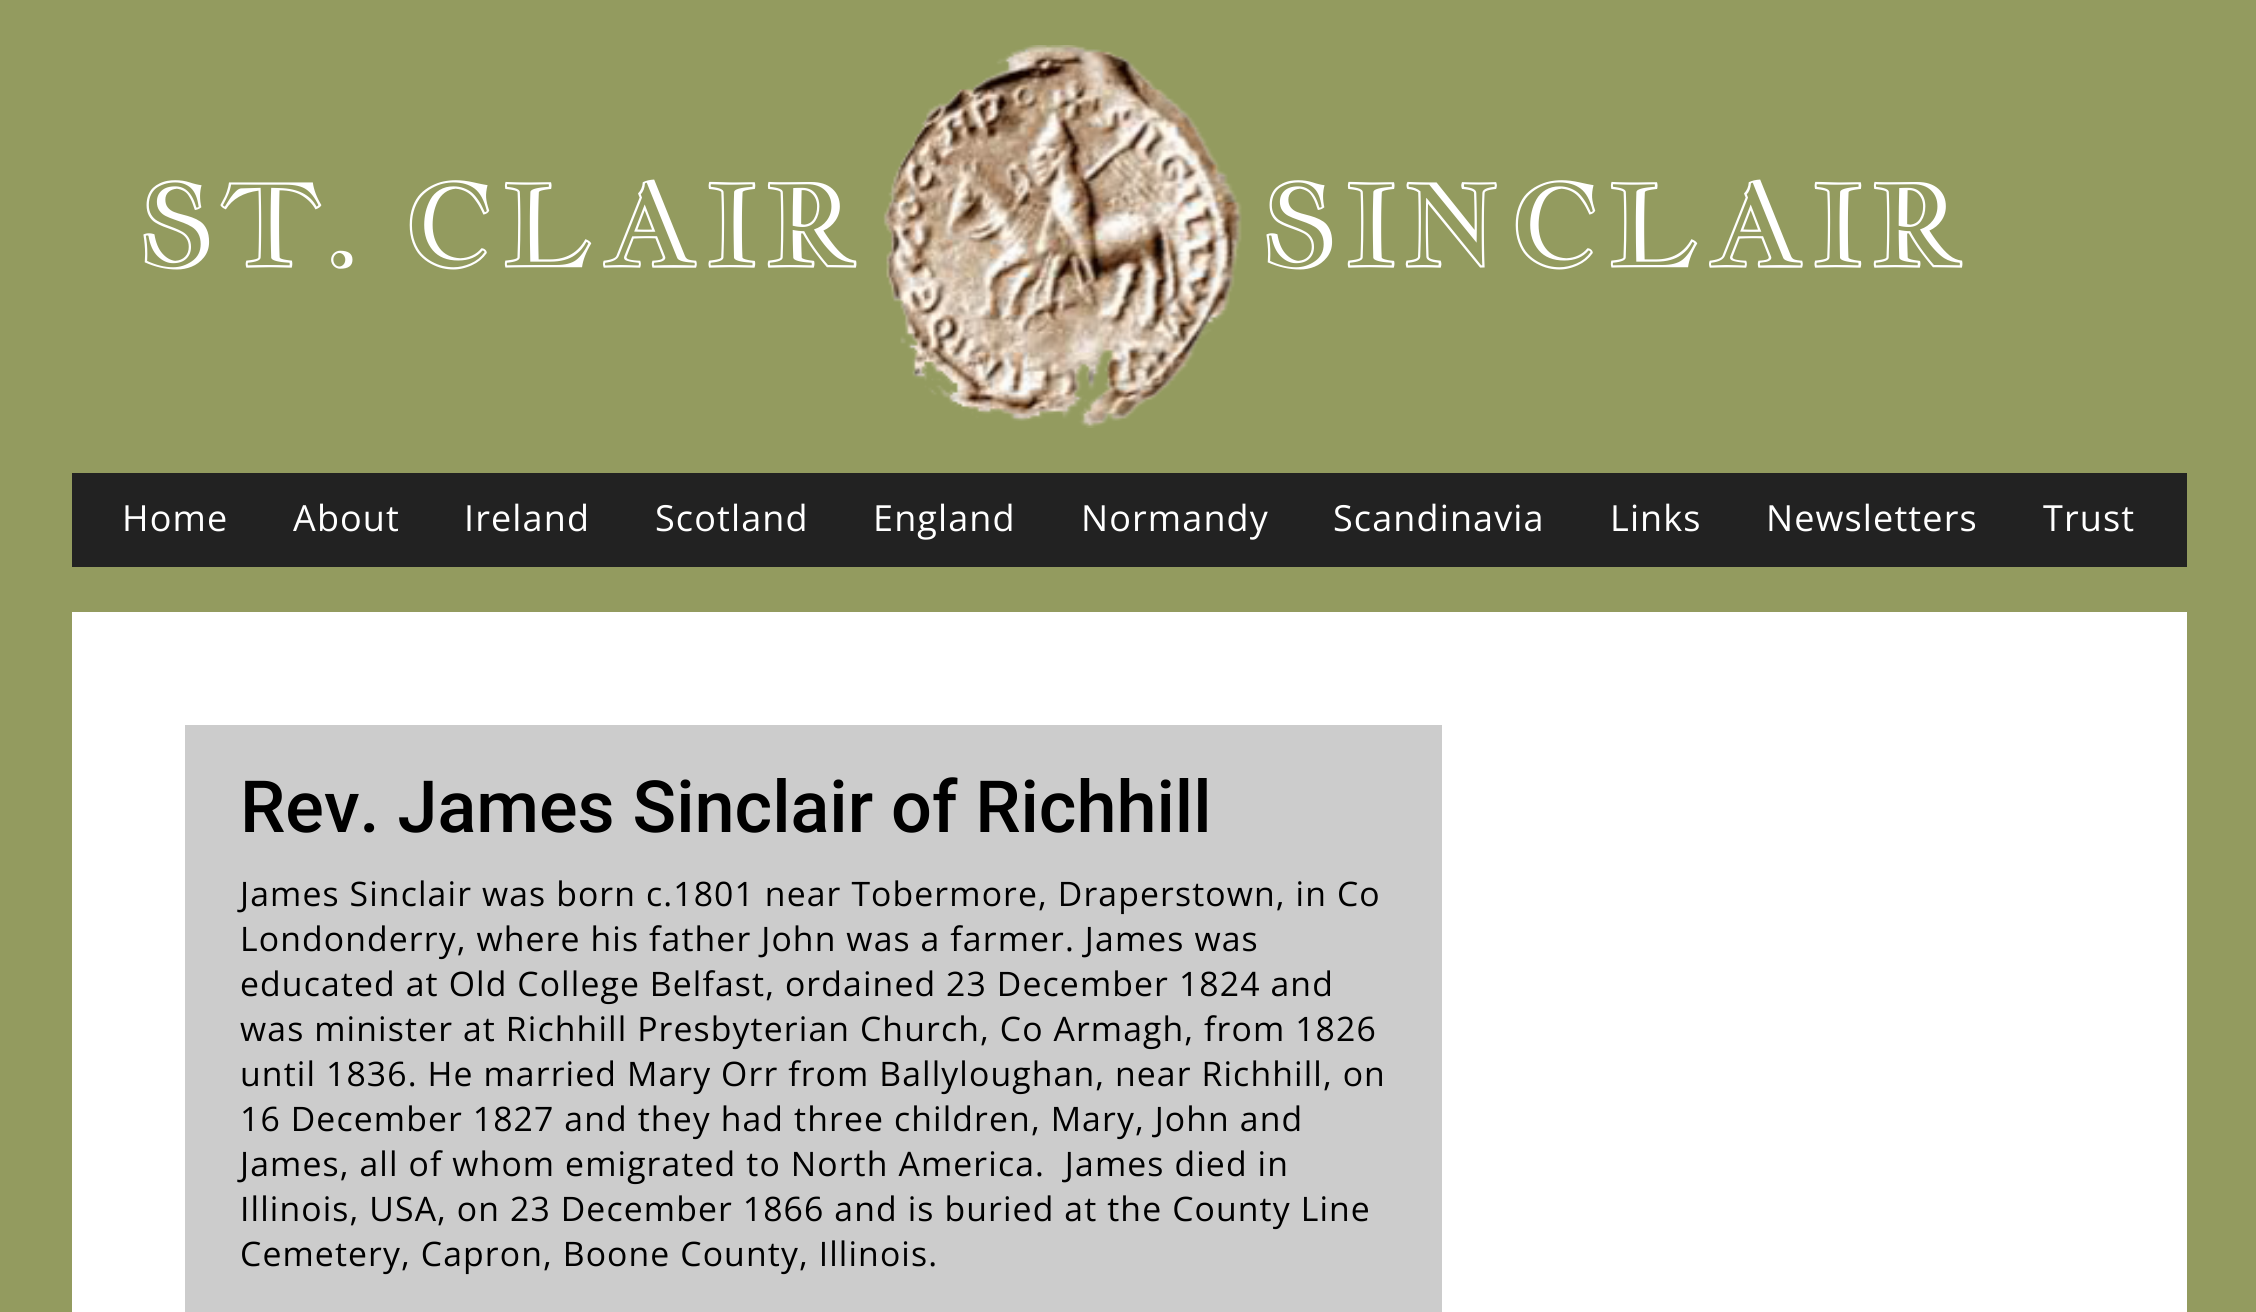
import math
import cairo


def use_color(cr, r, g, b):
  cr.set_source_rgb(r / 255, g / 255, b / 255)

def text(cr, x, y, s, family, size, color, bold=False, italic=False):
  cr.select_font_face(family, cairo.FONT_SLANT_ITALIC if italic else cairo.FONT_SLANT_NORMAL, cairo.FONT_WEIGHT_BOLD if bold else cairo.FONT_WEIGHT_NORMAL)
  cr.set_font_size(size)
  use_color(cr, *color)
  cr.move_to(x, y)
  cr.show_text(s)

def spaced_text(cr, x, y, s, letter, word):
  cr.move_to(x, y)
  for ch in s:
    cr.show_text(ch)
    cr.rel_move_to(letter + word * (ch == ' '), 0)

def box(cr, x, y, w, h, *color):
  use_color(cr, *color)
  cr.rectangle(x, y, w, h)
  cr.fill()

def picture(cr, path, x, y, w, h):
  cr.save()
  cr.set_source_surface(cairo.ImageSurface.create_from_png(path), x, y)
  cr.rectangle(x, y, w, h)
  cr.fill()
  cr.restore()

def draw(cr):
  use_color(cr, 147, 155, 95)
  cr.paint()
  picture(cr, "img_01.png", 883, 45, 359, 383)
  box(cr, 72, 473, 2115, 94, 34, 34, 34)
  box(cr, 72, 612, 2115, 700, 255, 255, 255)
  box(cr, 185, 725, 1257, 587, 204, 204, 204)
  cr.select_font_face("Jacques Francois Shadow")
  cr.set_font_size(112.5)
  use_color(cr, 255, 255, 255)
  spaced_text(cr, 138, 265, "ST. CLAIR", 6.75, 0)
  spaced_text(cr, 1261, 265, "SINCLAIR", 6.75, 0)
  cr.select_font_face("Open Sans")
  cr.set_font_size(36)
  spaced_text(cr, 122, 531, "Home", 1.12, 0)
  spaced_text(cr, 293, 531, "About", 1.12, 0)
  spaced_text(cr, 464, 531, "Ireland", 1.12, 0)
  spaced_text(cr, 655, 531, "Scotland", 1.12, 0)
  spaced_text(cr, 873, 531, "England", 1.12, 0)
  spaced_text(cr, 1081, 531, "Normandy", 1.12, 0)
  spaced_text(cr, 1333, 531, "Scandinavia", 1.12, 0)
  spaced_text(cr, 1610, 531, "Links", 1.12, 0)
  spaced_text(cr, 1766, 531, "Newsletters", 1.12, 0)
  spaced_text(cr, 2043, 531, "Trust", 1.12, 0)
  text(cr, 240, 832, "Rev. James Sinclair of Richhill", "Roboto Medium", 72, (0, 0, 0))
  cr.select_font_face("Open Sans")
  cr.set_font_size(33.75)
  spaced_text(cr, 240, 906, "James Sinclair was born c.1801 near Tobermore, Draperstown, in Co", 1.12, 0)
  spaced_text(cr, 240, 951, "Londonderry, where his father John was a farmer. James was", 1.12, 0)
  spaced_text(cr, 240, 996, "educated at Old College Belfast, ordained 23 December 1824 and", 1.12, 0)
  spaced_text(cr, 240, 1041, "was minister at Richhill Presbyterian Church, Co Armagh, from 1826", 1.12, 0)
  spaced_text(cr, 240, 1086, "until 1836. He married Mary Orr from Ballyloughan, near Richhill, on", 1.12, 0)
  spaced_text(cr, 240, 1131, "16 December 1827 and they had three children, Mary, John and", 1.12, 0)
  spaced_text(cr, 240, 1176, "James, all of whom emigrated to North America.  James died in", 1.12, 0)
  spaced_text(cr, 240, 1221, "Illinois, USA, on 23 December 1866 and is buried at the County Line", 1.12, 0)
  spaced_text(cr, 240, 1266, "Cemetery, Capron, Boone County, Illinois.", 1.12, 0)


surface = cairo.ImageSurface(cairo.FORMAT_RGB24, 2256, 1312)
cr = cairo.Context(surface)
options = cairo.FontOptions()
options.set_hint_metrics(cairo.HINT_METRICS_OFF)
options.set_hint_style(cairo.HINT_STYLE_NONE)
cr.set_font_options(options)
cr.set_miter_limit(4)
draw(cr)
surface.write_to_png("out.png")
